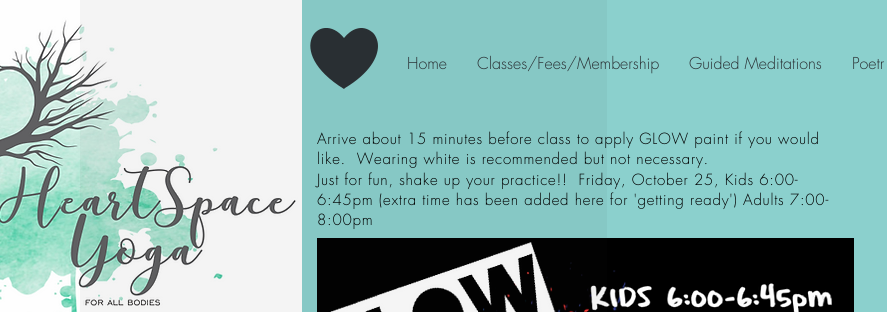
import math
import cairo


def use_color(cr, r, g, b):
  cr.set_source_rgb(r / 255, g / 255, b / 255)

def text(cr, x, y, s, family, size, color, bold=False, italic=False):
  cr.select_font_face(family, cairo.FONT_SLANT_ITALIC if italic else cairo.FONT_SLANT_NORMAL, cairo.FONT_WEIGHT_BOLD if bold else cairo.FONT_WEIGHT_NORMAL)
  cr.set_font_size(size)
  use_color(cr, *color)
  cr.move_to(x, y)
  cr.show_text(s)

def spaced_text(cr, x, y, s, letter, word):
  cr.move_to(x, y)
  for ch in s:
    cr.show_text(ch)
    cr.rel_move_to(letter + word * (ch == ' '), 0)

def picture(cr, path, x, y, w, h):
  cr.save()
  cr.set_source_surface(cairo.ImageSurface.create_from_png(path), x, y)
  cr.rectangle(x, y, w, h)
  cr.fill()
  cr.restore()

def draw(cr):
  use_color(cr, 139, 208, 205)
  cr.paint()
  picture(cr, "img_01.png", 0, 0, 302, 312)
  use_color(cr, 41, 47, 51)
  cr.new_path()
  cr.move_to(372, 32)
  cr.curve_to(362, 24, 351, 29, 344, 38)
  cr.curve_to(320, 8, 282, 51, 344, 89)
  cr.line_to(345, 88)
  cr.curve_to(370, 73, 378, 57, 378, 46)
  cr.curve_to(378, 40, 375, 34, 372, 32)
  cr.close_path()
  cr.fill()
  picture(cr, "img_02.png", 317, 238, 537, 74)
  cr.set_source_rgba(0.161, 0.184, 0.2, 0.05)
  cr.rectangle(80, 0, 527, 312)
  cr.fill()
  text(cr, 407, 69, "Home", "futura Light", 16, (41, 47, 51))
  text(cr, 477, 69, "Classes/Fees/Membership", "futura Light", 16, (41, 47, 51))
  text(cr, 689, 69, "Guided Meditations", "futura Light", 16, (41, 47, 51))
  text(cr, 852, 69, "Poetr", "futura Light", 16, (41, 47, 51))
  cr.set_font_size(15)
  use_color(cr, 0, 0, 0)
  spaced_text(cr, 317, 144, "Arrive about 15 minutes before class to apply GLOW paint if you would", 0.75, 0)
  spaced_text(cr, 317, 164, "like.  Wearing white is recommended but not necessary.", 0.75, 0)
  spaced_text(cr, 317, 185, "Just for fun, shake up your practice!!  Friday, October 25, Kids 6:00-", 0.75, 0)
  spaced_text(cr, 317, 205, "6:45pm (extra time has been added here for 'getting ready') Adults 7:00-", 0.75, 0)
  spaced_text(cr, 317, 225, "8:00pm", 0.75, 0)


surface = cairo.ImageSurface(cairo.FORMAT_RGB24, 887, 312)
cr = cairo.Context(surface)
options = cairo.FontOptions()
options.set_hint_metrics(cairo.HINT_METRICS_OFF)
options.set_hint_style(cairo.HINT_STYLE_NONE)
cr.set_font_options(options)
cr.set_miter_limit(4)
draw(cr)
surface.write_to_png("out.png")
